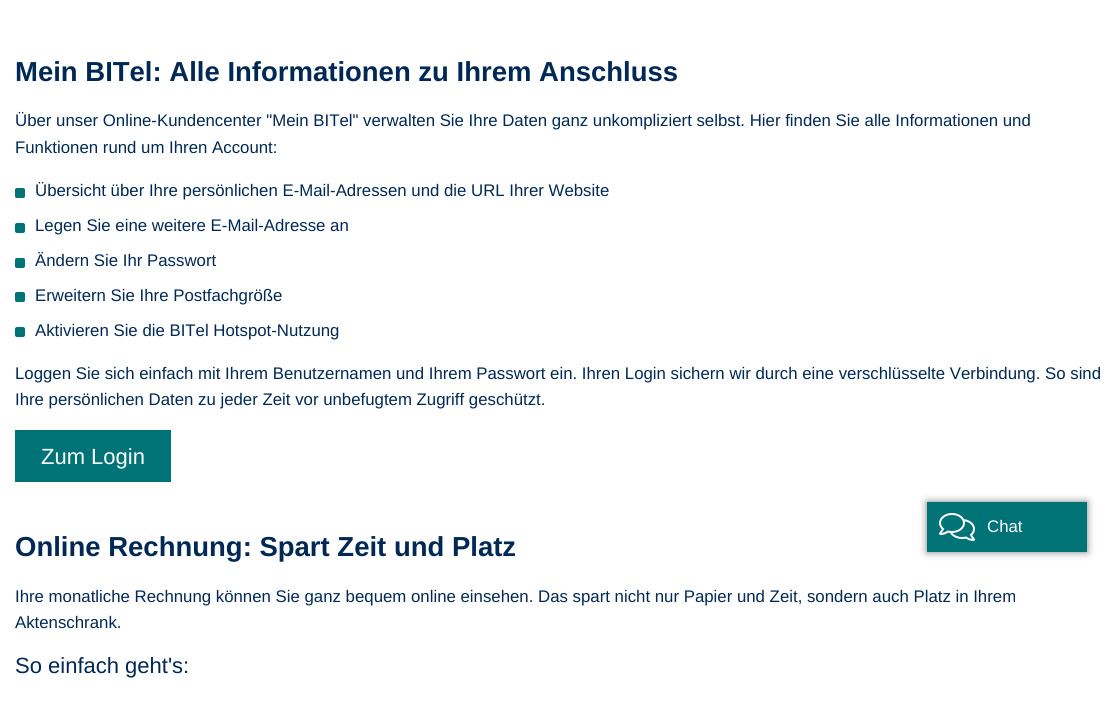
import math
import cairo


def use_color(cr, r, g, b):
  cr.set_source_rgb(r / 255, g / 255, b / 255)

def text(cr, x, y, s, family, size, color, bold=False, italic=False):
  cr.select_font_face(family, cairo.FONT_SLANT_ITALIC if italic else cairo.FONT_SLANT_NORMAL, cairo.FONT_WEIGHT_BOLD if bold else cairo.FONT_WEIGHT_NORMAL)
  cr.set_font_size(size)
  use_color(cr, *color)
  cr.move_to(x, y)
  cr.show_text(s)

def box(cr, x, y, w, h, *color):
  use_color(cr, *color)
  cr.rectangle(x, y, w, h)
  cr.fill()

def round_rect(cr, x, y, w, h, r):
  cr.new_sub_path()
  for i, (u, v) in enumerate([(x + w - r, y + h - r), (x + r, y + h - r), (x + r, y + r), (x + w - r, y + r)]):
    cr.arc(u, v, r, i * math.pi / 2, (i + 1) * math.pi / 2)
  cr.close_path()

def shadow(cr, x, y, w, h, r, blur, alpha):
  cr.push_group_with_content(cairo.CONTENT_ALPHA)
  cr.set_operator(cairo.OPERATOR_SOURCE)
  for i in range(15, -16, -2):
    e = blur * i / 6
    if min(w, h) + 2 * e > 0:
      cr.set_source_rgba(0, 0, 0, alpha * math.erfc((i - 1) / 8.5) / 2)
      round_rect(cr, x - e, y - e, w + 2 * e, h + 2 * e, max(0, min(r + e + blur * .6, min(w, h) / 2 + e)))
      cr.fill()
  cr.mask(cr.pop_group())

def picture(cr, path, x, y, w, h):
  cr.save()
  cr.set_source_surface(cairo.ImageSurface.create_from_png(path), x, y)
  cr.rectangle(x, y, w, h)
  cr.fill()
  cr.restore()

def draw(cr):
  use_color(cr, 255, 255, 255)
  cr.paint()
  use_color(cr, 0, 115, 119)
  round_rect(cr, 15.5, 188.5, 9, 9, 1.5)
  cr.fill_preserve()
  cr.set_line_width(1)
  cr.stroke()
  round_rect(cr, 15.5, 223.5, 9, 9, 1.5)
  cr.fill_preserve()
  cr.stroke()
  round_rect(cr, 15.5, 258.5, 9, 9, 1.5)
  cr.fill_preserve()
  cr.stroke()
  round_rect(cr, 15.5, 292.5, 9, 9, 1.5)
  cr.fill_preserve()
  cr.stroke()
  round_rect(cr, 15.5, 327.5, 9, 9, 1.5)
  cr.fill_preserve()
  cr.stroke()
  box(cr, 15, 430, 156, 52, 0, 115, 119)
  use_color(cr, 0, 0, 0)
  shadow(cr, 927, 502, 160, 50, 0, 4, 0.5)
  box(cr, 927, 502, 160, 50, 0, 115, 119)
  picture(cr, "img_01.png", 939, 513, 36, 28)
  text(cr, 15, 81, "Mein BITel: Alle Informationen zu Ihrem Anschluss", "Liberation Sans", 27.5, (0, 40, 85), bold=True)
  text(cr, 15, 126, "Über unser Online-Kundencenter \"Mein BITel\" verwalten Sie Ihre Daten ganz unkompliziert selbst. Hier finden Sie alle Informationen und", "Liberation Sans", 16.8, (0, 40, 85))
  text(cr, 15, 153, "Funktionen rund um Ihren Account:", "Liberation Sans", 16.8, (0, 40, 85))
  text(cr, 35, 196, "Übersicht über Ihre persönlichen E-Mail-Adressen und die URL Ihrer Website", "Liberation Sans", 16.8, (0, 40, 85))
  text(cr, 35, 231, "Legen Sie eine weitere E-Mail-Adresse an", "Liberation Sans", 16.8, (0, 40, 85))
  text(cr, 35, 266, "Ändern Sie Ihr Passwort", "Liberation Sans", 16.8, (0, 40, 85))
  text(cr, 35, 301, "Erweitern Sie Ihre Postfachgröße", "Liberation Sans", 16.8, (0, 40, 85))
  text(cr, 35, 336, "Aktivieren Sie die BITel Hotspot-Nutzung", "Liberation Sans", 16.8, (0, 40, 85))
  text(cr, 15, 379, "Loggen Sie sich einfach mit Ihrem Benutzernamen und Ihrem Passwort ein. Ihren Login sichern wir durch eine verschlüsselte Verbindung. So sind", "Liberation Sans", 16.8, (0, 40, 85))
  text(cr, 15, 405, "Ihre persönlichen Daten zu jeder Zeit vor unbefugtem Zugriff geschützt.", "Liberation Sans", 16.8, (0, 40, 85))
  text(cr, 41, 464, "Zum Login", "Liberation Sans", 22, (255, 255, 255))
  text(cr, 15, 556, "Online Rechnung: Spart Zeit und Platz", "Liberation Sans", 27.5, (0, 40, 85), bold=True)
  text(cr, 15, 602, "Ihre monatliche Rechnung können Sie ganz bequem online einsehen. Das spart nicht nur Papier und Zeit, sondern auch Platz in Ihrem", "Liberation Sans", 16.8, (0, 40, 85))
  text(cr, 15, 628, "Aktenschrank.", "Liberation Sans", 16.8, (0, 40, 85))
  text(cr, 15, 673, "So einfach geht's:", "Liberation Sans", 22, (0, 40, 85))
  text(cr, 987, 532, "Chat", "Liberation Sans", 16.8, (255, 255, 255))


surface = cairo.ImageSurface(cairo.FORMAT_RGB24, 1117, 704)
cr = cairo.Context(surface)
options = cairo.FontOptions()
options.set_hint_metrics(cairo.HINT_METRICS_OFF)
options.set_hint_style(cairo.HINT_STYLE_NONE)
cr.set_font_options(options)
cr.set_miter_limit(4)
draw(cr)
surface.write_to_png("out.png")
